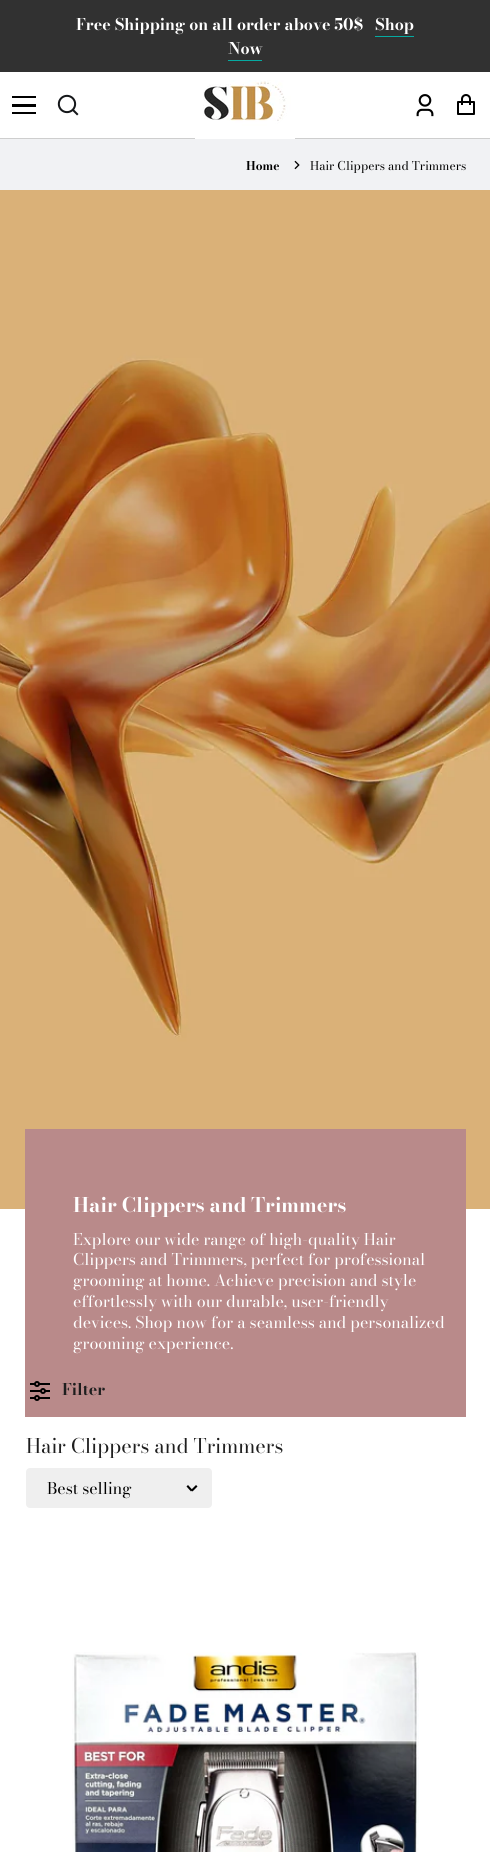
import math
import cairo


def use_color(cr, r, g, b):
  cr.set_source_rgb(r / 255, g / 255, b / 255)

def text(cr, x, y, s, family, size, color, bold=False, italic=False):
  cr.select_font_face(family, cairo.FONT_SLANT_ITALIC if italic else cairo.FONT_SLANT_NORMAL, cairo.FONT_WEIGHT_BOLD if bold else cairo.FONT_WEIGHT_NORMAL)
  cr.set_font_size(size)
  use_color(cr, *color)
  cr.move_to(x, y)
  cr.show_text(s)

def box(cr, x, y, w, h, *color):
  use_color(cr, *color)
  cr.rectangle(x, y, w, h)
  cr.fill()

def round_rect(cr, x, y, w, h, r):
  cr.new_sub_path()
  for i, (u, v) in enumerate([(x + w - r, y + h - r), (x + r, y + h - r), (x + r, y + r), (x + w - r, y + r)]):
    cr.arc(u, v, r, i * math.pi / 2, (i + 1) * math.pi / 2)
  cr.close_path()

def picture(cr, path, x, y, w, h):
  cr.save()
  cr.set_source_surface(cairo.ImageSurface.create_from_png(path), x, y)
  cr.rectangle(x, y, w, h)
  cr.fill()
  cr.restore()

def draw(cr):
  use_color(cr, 255, 255, 255)
  cr.paint()
  box(cr, 0, 0, 490, 72, 49, 49, 49)
  box(cr, 375, 36, 39, 1, 6, 170, 161)
  box(cr, 228, 60, 34, 1, 6, 170, 161)
  box(cr, 0, 138, 490, 1, 206, 206, 206)
  box(cr, 12, 112, 24, 2, 0, 0, 0)
  box(cr, 12, 104, 24, 3, 0, 0, 0)
  box(cr, 12, 96, 24, 2, 0, 0, 0)
  picture(cr, "img_01.png", 57, 94, 22, 22)
  picture(cr, "img_02.png", 195, 80, 100, 59)
  picture(cr, "img_03.png", 416, 94, 18, 23)
  picture(cr, "img_04.png", 457, 94, 18, 21)
  box(cr, 0, 139, 490, 51, 241, 242, 244)
  picture(cr, "img_05.png", 294, 160, 6, 10)
  picture(cr, "img_06.png", 0, 190, 490, 1019)
  box(cr, 25, 1129, 441, 288, 185, 138, 138)
  picture(cr, "img_07.png", 30, 1381, 20, 20)
  use_color(cr, 239, 239, 239)
  round_rect(cr, 26, 1468, 186, 40, 4)
  cr.fill()
  use_color(cr, 0, 0, 0)
  cr.new_path()
  cr.move_to(191, 1490)
  cr.line_to(196, 1485)
  cr.line_to(197.5, 1486.5)
  cr.line_to(192.5, 1491.5)
  cr.close_path()
  cr.fill()
  cr.new_path()
  cr.move_to(186.5, 1486.5)
  cr.line_to(188, 1485)
  cr.line_to(192.5, 1490)
  cr.line_to(191, 1491.5)
  cr.close_path()
  cr.fill()
  picture(cr, "img_08.png", 72, 1652, 347, 200)
  text(cr, 76, 30, "Free Shipping on all order above 50$", "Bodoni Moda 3", 16, (255, 255, 255), bold=True)
  text(cr, 375, 30, "Shop", "Bodoni Moda", 16, (255, 255, 255), bold=True)
  text(cr, 228, 54, "Now", "Bodoni Moda", 16, (255, 255, 255), bold=True)
  text(cr, 246, 170, "Home", "Bodoni Moda", 12, (0, 0, 0), bold=True)
  text(cr, 310, 170, "Hair Clippers and Trimmers", "Bodoni Moda", 12, (0, 0, 0))
  text(cr, 73, 1212, "Hair Clippers and Trimmers", "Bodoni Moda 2", 20, (255, 255, 255), bold=True)
  text(cr, 73, 1245, "Explore our wide range of high-quality Hair", "Bodoni Moda 2", 16, (255, 255, 255))
  text(cr, 73, 1265, "Clippers and Trimmers, perfect for professional", "Bodoni Moda 2", 16, (255, 255, 255))
  text(cr, 73, 1286, "grooming at home. Achieve precision and style", "Bodoni Moda 2", 16, (255, 255, 255))
  text(cr, 73, 1307, "effortlessly with our durable, user-friendly", "Bodoni Moda 2", 16, (255, 255, 255))
  text(cr, 73, 1328, "devices. Shop now for a seamless and personalized", "Bodoni Moda 2", 16, (255, 255, 255))
  text(cr, 73, 1349, "grooming experience.", "Bodoni Moda 2", 16, (255, 255, 255))
  text(cr, 62, 1395, "Filter", "Bodoni Moda 3", 16, (30, 30, 30), bold=True)
  text(cr, 26, 1453, "Hair Clippers and Trimmers", "Bodoni Moda 3", 20, (30, 30, 30))
  text(cr, 47, 1494, "Best selling", "Bodoni Moda 2", 16, (0, 0, 0))


surface = cairo.ImageSurface(cairo.FORMAT_RGB24, 490, 1852)
cr = cairo.Context(surface)
options = cairo.FontOptions()
options.set_hint_metrics(cairo.HINT_METRICS_OFF)
options.set_hint_style(cairo.HINT_STYLE_NONE)
cr.set_font_options(options)
cr.set_miter_limit(4)
draw(cr)
surface.write_to_png("out.png")
